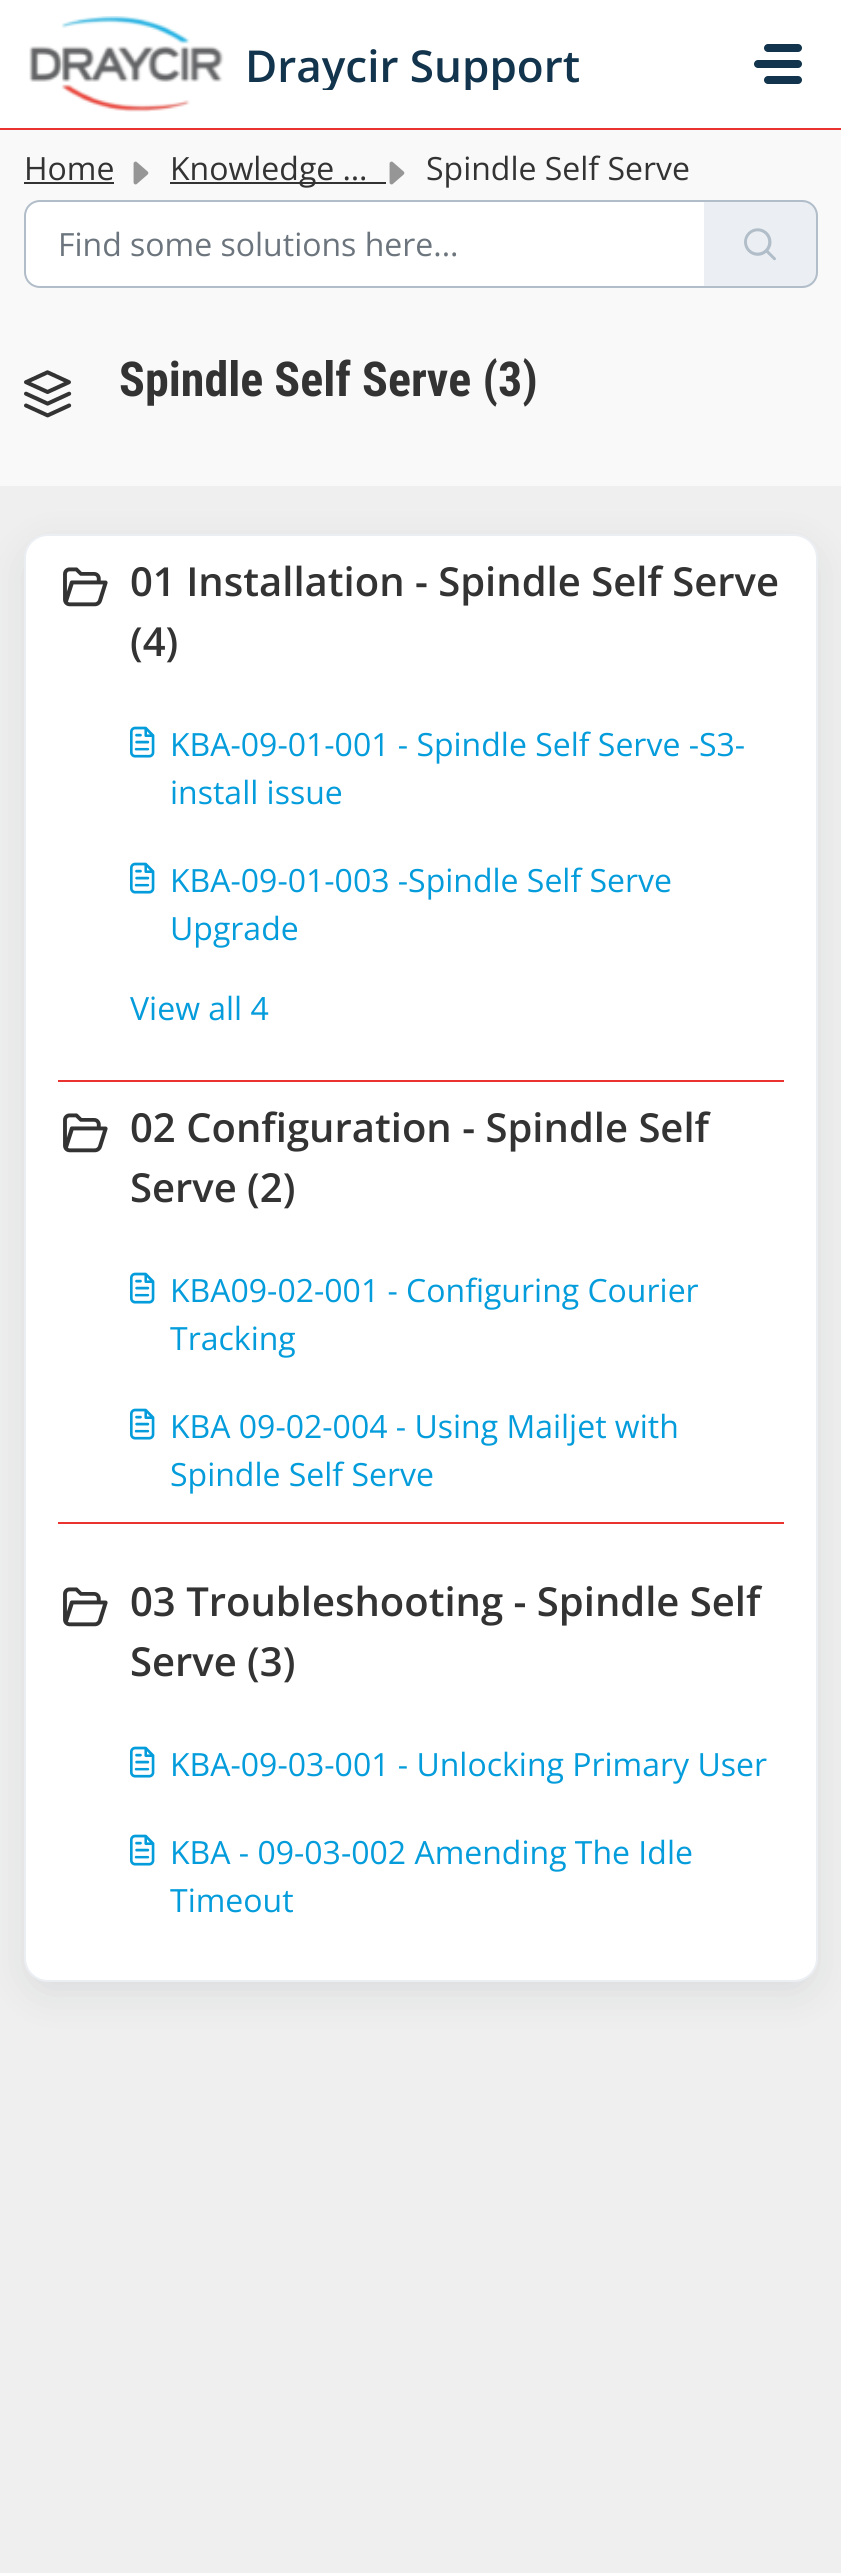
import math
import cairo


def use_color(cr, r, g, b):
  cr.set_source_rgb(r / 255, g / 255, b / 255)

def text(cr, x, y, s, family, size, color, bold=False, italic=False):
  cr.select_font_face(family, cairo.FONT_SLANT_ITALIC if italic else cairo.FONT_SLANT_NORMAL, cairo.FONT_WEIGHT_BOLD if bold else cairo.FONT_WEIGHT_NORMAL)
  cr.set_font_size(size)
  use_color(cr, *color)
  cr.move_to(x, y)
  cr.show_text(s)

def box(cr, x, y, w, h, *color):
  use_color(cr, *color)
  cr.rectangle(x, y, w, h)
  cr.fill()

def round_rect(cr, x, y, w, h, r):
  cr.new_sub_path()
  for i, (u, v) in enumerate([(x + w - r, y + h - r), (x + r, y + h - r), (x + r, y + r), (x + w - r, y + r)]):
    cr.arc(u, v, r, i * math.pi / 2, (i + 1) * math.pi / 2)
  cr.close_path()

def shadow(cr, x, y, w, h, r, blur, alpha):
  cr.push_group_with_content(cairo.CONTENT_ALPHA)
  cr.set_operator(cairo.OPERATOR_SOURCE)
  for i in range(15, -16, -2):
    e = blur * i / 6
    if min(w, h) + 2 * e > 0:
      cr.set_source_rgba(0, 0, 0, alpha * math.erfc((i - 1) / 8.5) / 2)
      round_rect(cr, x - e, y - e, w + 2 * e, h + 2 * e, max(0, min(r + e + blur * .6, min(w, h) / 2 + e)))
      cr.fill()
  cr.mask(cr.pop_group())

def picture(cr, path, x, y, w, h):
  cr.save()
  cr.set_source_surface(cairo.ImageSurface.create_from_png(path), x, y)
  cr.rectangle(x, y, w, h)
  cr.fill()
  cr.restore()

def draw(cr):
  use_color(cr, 239, 239, 239)
  cr.paint()
  box(cr, 0, 0, 841, 128, 255, 255, 255)
  box(cr, 0, 128, 841, 2, 234, 50, 48)
  picture(cr, "img_01.png", 29, 16, 195, 96)
  use_color(cr, 18, 52, 77)
  round_rect(cr, 764, 44, 38, 8, 4)
  cr.fill()
  round_rect(cr, 754, 60, 48, 8, 4)
  cr.fill()
  round_rect(cr, 764, 76, 38, 8, 4)
  cr.fill()
  box(cr, 0, 130, 841, 356, 249, 249, 249)
  box(cr, 24, 182, 90, 2, 51, 51, 51)
  picture(cr, "img_02.png", 133, 161, 16, 24)
  box(cr, 170, 182, 216, 2, 51, 51, 51)
  picture(cr, "img_02.png", 389, 161, 16, 24)
  use_color(cr, 255, 255, 255)
  cr.new_path()
  cr.move_to(40, 201)
  cr.line_to(705, 201)
  cr.line_to(705, 287)
  cr.line_to(40, 287)
  cr.curve_to(31.5, 287, 25, 280.5, 25, 272)
  cr.line_to(25, 216)
  cr.curve_to(25, 207.5, 31.5, 201, 40, 201)
  cr.close_path()
  cr.fill_preserve()
  use_color(cr, 177, 189, 200)
  cr.stroke()
  use_color(cr, 235, 239, 243)
  cr.new_path()
  cr.move_to(704, 200)
  cr.line_to(802, 200)
  cr.curve_to(811, 200, 818, 207, 818, 216)
  cr.line_to(818, 272)
  cr.curve_to(818, 281, 811, 288, 802, 288)
  cr.line_to(704, 288)
  cr.close_path()
  cr.fill()
  use_color(cr, 177, 189, 200)
  cr.set_fill_rule(cairo.FILL_RULE_EVEN_ODD)
  cr.new_path()
  cr.move_to(704, 200)
  cr.line_to(802, 200)
  cr.curve_to(811, 200, 818, 207, 818, 216)
  cr.line_to(818, 272)
  cr.curve_to(818, 281, 811, 288, 802, 288)
  cr.line_to(704, 288)
  cr.close_path()
  cr.move_to(704, 202)
  cr.line_to(802, 202)
  cr.curve_to(810, 202, 816, 208, 816, 216)
  cr.line_to(816, 272)
  cr.curve_to(816, 280, 810, 286, 802, 286)
  cr.line_to(704, 286)
  cr.close_path()
  cr.fill()
  picture(cr, "img_03.png", 744, 228, 32, 33)
  picture(cr, "img_04.png", 24, 370, 48, 48)
  use_color(cr, 39, 49, 58)
  shadow(cr, 24, 546, 794, 1448, 24, 19, 0.1)
  use_color(cr, 255, 255, 255)
  round_rect(cr, 25, 535, 792, 1446, 23)
  cr.fill_preserve()
  use_color(cr, 235, 239, 243)
  cr.stroke()
  box(cr, 58, 1080, 726, 2, 234, 50, 48)
  picture(cr, "img_05.png", 63, 567, 45, 40)
  picture(cr, "img_06.png", 130, 726, 25, 32)
  picture(cr, "img_06.png", 130, 862, 25, 32)
  box(cr, 58, 1522, 726, 2, 234, 50, 48)
  picture(cr, "img_05.png", 63, 1113, 45, 40)
  picture(cr, "img_06.png", 130, 1272, 25, 32)
  picture(cr, "img_06.png", 130, 1408, 25, 32)
  picture(cr, "img_05.png", 63, 1587, 45, 40)
  picture(cr, "img_06.png", 130, 1746, 25, 32)
  picture(cr, "img_06.png", 130, 1834, 25, 32)
  cr.save()
  cr.set_fill_rule(cairo.FILL_RULE_WINDING)
  cr.rectangle(246, 38, 334, 52)
  cr.clip()
  text(cr, 245, 82, "Draycir Support", "Open Sans SemiBold", 44, (18, 52, 77))
  cr.restore()
  text(cr, 24, 180, "Home", "Open Sans", 32, (51, 51, 51))
  text(cr, 170, 180, "Knowledge …", "Open Sans", 32, (51, 51, 51))
  text(cr, 426, 180, "Spindle Self Serve", "Open Sans", 32, (51, 51, 51))
  text(cr, 58, 256, "Find some solutions here...", "Open Sans", 32, (108, 117, 125))
  text(cr, 119, 396, "Spindle Self Serve (3)", "Roboto Condensed", 48, (51, 51, 51), bold=True)
  text(cr, 130, 596, "01 Installation - Spindle Self Serve", "Open Sans SemiBold", 40, (51, 51, 51))
  text(cr, 130, 656, "(4)", "Open Sans SemiBold", 40, (51, 51, 51))
  text(cr, 170, 756, "KBA-09-01-001 - Spindle Self Serve -S3-", "Open Sans", 32, (4, 156, 219))
  text(cr, 170, 804, "install issue", "Open Sans", 32, (4, 156, 219))
  text(cr, 170, 892, "KBA-09-01-003 -Spindle Self Serve", "Open Sans", 32, (4, 156, 219))
  text(cr, 170, 940, "Upgrade", "Open Sans", 32, (4, 156, 219))
  text(cr, 130, 1020, "View all 4", "Open Sans", 32, (4, 156, 219))
  text(cr, 130, 1142, "02 Configuration - Spindle Self", "Open Sans SemiBold", 40, (51, 51, 51))
  text(cr, 130, 1202, "Serve (2)", "Open Sans SemiBold", 40, (51, 51, 51))
  text(cr, 170, 1302, "KBA09-02-001 - Configuring Courier", "Open Sans", 32, (4, 156, 219))
  text(cr, 170, 1350, "Tracking", "Open Sans", 32, (4, 156, 219))
  text(cr, 170, 1438, "KBA 09-02-004 - Using Mailjet with", "Open Sans", 32, (4, 156, 219))
  text(cr, 170, 1486, "Spindle Self Serve", "Open Sans", 32, (4, 156, 219))
  text(cr, 130, 1616, "03 Troubleshooting - Spindle Self", "Open Sans SemiBold", 40, (51, 51, 51))
  text(cr, 130, 1676, "Serve (3)", "Open Sans SemiBold", 40, (51, 51, 51))
  text(cr, 170, 1776, "KBA-09-03-001 - Unlocking Primary User", "Open Sans", 32, (4, 156, 219))
  text(cr, 170, 1864, "KBA - 09-03-002 Amending The Idle", "Open Sans", 32, (4, 156, 219))
  text(cr, 170, 1912, "Timeout", "Open Sans", 32, (4, 156, 219))


surface = cairo.ImageSurface(cairo.FORMAT_RGB24, 841, 2573)
cr = cairo.Context(surface)
options = cairo.FontOptions()
options.set_hint_metrics(cairo.HINT_METRICS_OFF)
options.set_hint_style(cairo.HINT_STYLE_NONE)
cr.set_font_options(options)
cr.set_miter_limit(4)
draw(cr)
surface.write_to_png("out.png")
